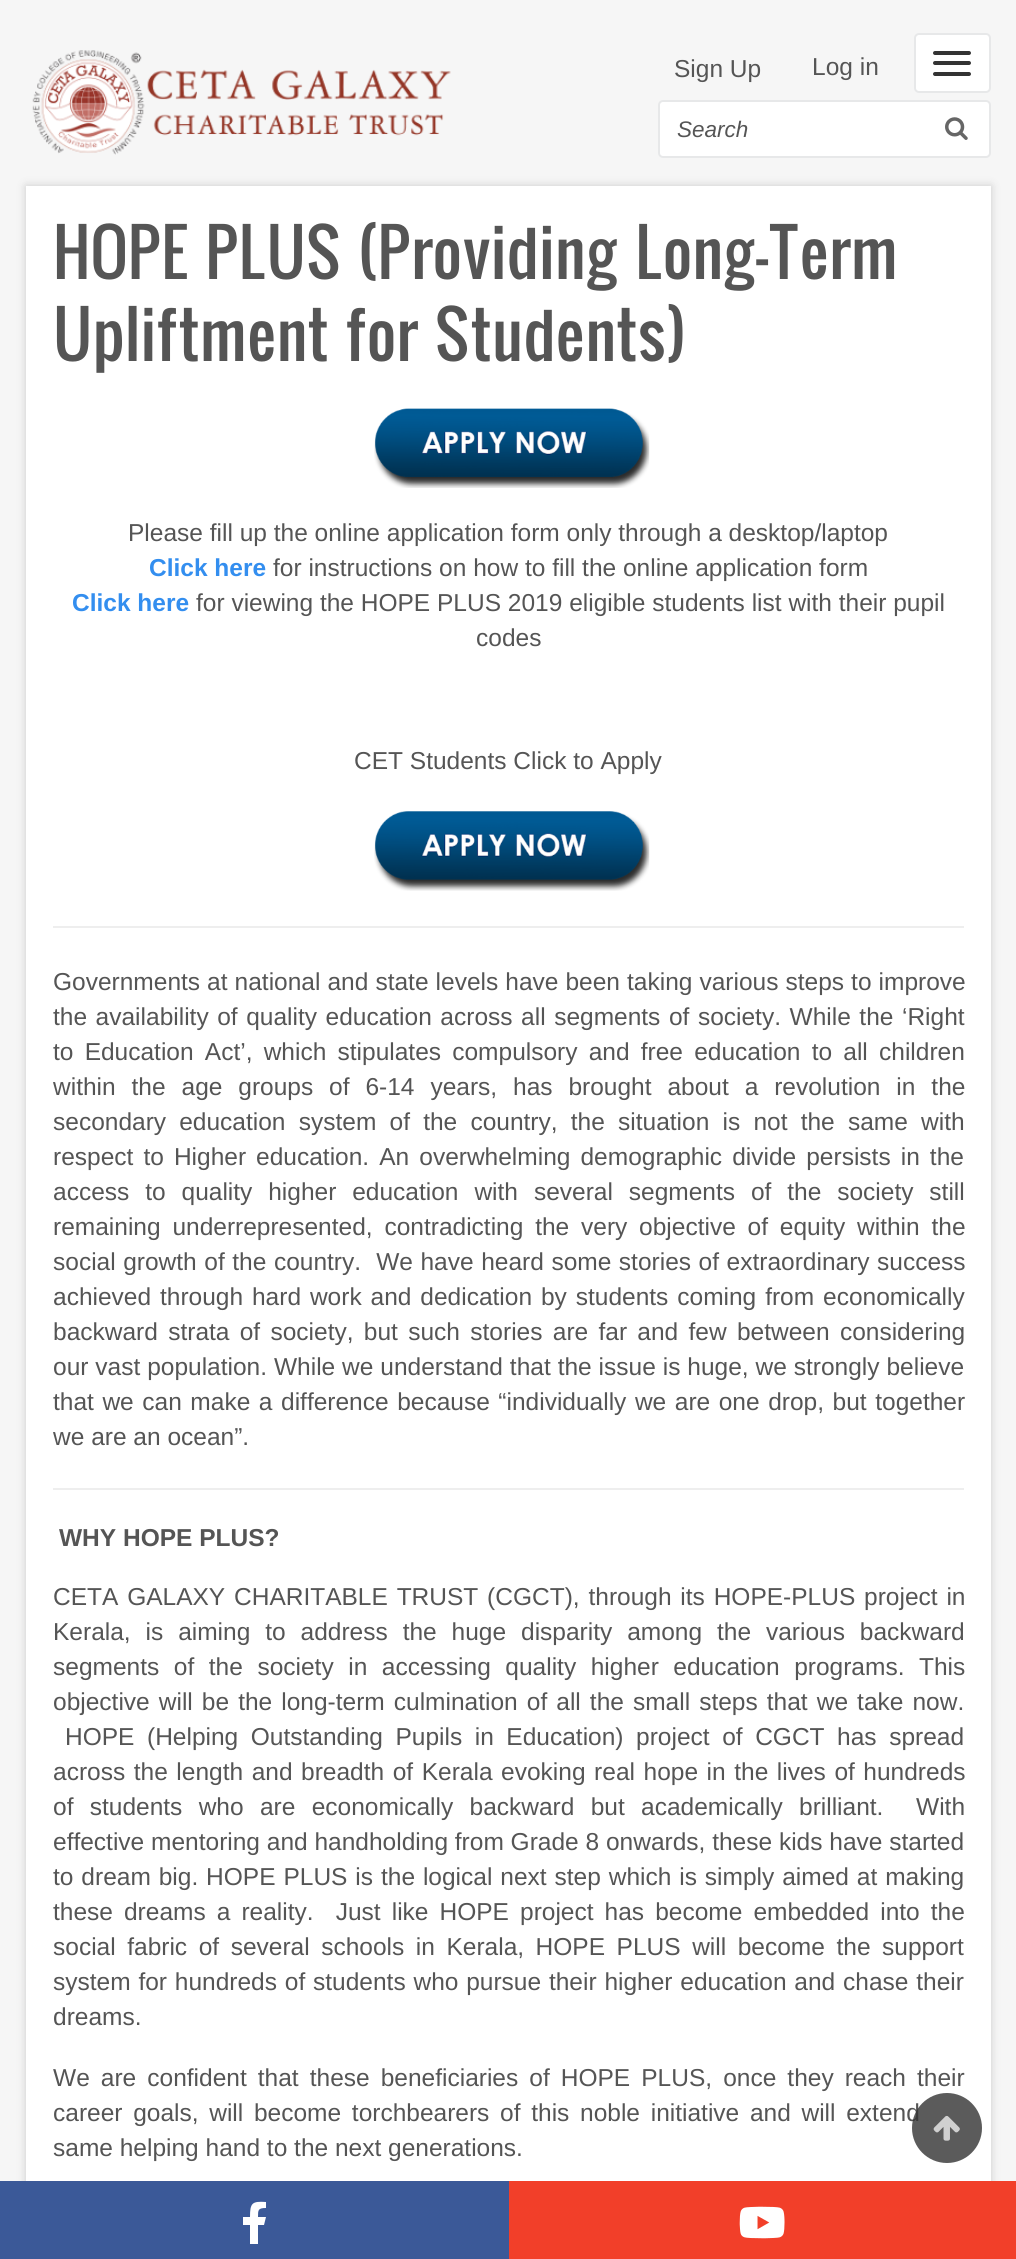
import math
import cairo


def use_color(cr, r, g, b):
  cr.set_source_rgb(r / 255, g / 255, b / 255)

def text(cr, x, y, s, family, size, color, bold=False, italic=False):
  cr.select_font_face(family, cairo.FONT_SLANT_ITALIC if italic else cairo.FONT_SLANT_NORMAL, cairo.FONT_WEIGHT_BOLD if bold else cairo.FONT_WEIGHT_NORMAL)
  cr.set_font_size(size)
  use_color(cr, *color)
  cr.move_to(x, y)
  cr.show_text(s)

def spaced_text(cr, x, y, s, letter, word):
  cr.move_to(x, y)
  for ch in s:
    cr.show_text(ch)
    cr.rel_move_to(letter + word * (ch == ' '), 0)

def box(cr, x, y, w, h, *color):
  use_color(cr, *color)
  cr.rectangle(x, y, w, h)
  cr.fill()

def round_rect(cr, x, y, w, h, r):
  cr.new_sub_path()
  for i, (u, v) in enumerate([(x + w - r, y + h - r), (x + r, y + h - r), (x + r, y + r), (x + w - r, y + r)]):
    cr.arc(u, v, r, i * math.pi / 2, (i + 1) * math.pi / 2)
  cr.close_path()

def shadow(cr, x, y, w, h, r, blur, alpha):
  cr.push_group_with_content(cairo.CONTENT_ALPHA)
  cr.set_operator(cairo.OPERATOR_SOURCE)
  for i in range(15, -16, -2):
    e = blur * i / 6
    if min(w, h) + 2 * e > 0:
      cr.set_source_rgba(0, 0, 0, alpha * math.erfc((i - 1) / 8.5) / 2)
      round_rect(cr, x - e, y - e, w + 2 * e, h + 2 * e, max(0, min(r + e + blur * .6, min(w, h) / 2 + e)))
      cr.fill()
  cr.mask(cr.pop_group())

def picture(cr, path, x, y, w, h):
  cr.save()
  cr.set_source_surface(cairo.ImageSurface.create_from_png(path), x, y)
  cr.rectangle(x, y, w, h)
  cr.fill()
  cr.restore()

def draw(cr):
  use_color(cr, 246, 246, 246)
  cr.paint()
  picture(cr, "img_01.png", 32, 50, 419, 105)
  use_color(cr, 255, 255, 255)
  round_rect(cr, 659, 101, 331, 56, 4)
  cr.fill_preserve()
  use_color(cr, 231, 232, 233)
  cr.stroke()
  picture(cr, "img_02.png", 945, 117, 23, 23)
  use_color(cr, 204, 204, 204)
  shadow(cr, 26, 186, 965, 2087, 0, 4.5, 1)
  box(cr, 0, 2181, 509, 78, 59, 89, 152)
  use_color(cr, 255, 255, 255)
  cr.new_path()
  cr.move_to(264, 2225)
  cr.line_to(258, 2225)
  cr.line_to(258, 2244)
  cr.line_to(250, 2244)
  cr.line_to(250, 2225)
  cr.line_to(243, 2225)
  cr.line_to(243, 2217)
  cr.line_to(250, 2217)
  cr.curve_to(250, 2203, 252, 2201, 266, 2202)
  cr.line_to(266, 2208)
  cr.curve_to(258, 2208, 258, 2210, 258, 2217)
  cr.line_to(266, 2217)
  cr.close_path()
  cr.fill()
  box(cr, 509, 2181, 507, 78, 242, 63, 41)
  picture(cr, "img_03.png", 739, 2206, 46, 33)
  use_color(cr, 255, 255, 255)
  round_rect(cr, 915, 34, 75, 58, 4)
  cr.fill_preserve()
  use_color(cr, 231, 232, 233)
  cr.stroke()
  use_color(cr, 51, 51, 51)
  round_rect(cr, 933, 51, 38, 4, 2)
  cr.fill()
  round_rect(cr, 933, 61, 38, 4, 2)
  cr.fill()
  round_rect(cr, 933, 72, 38, 4, 2)
  cr.fill()
  box(cr, 26, 186, 965, 1995, 255, 255, 255)
  picture(cr, "img_04.png", 374, 408, 276, 80)
  picture(cr, "img_05.png", 374, 811, 276, 80)
  box(cr, 53, 926, 911, 2, 238, 238, 238)
  box(cr, 53, 1488, 911, 2, 238, 238, 238)
  text(cr, 674, 77, "Sign Up", "Liberation Sans", 24.5, (85, 85, 85))
  text(cr, 812, 75, "Log in", "Liberation Sans", 24.5, (85, 85, 85))
  text(cr, 677, 137, "Search", "Liberation Sans", 22.5, (85, 85, 85), italic=True)
  text(cr, 53, 279, "HOPE PLUS (Providing Long-Term", "Oswald", 63, (85, 85, 85))
  text(cr, 53, 361, "Upliftment for Students)", "Oswald", 63, (85, 85, 85))
  text(cr, 128, 541, "Please fill up the online application form only through a desktop/laptop", "Liberation Sans", 24.5, (85, 85, 85))
  text(cr, 149, 576, "Click here", "Liberation Sans", 24.5, (51, 142, 239), bold=True)
  text(cr, 273, 576, "for instructions on how to fill the online application form", "Liberation Sans", 24.5, (85, 85, 85))
  text(cr, 72, 611, "Click here", "Liberation Sans", 24.5, (51, 142, 239), bold=True)
  text(cr, 196, 611, "for viewing the HOPE PLUS 2019 eligible students list with their pupil", "Liberation Sans", 24.5, (85, 85, 85))
  text(cr, 476, 646, "codes", "Liberation Sans", 24.5, (85, 85, 85))
  text(cr, 354, 769, "CET Students Click to Apply", "Liberation Sans", 24.5, (85, 85, 85))
  spaced_text(cr, 53, 990, "Governments at national and state levels have been taking various steps to improve", 0, 0.25)
  spaced_text(cr, 53, 1025, "the availability of quality education across all segments of society. While the ‘Right", 0, 1.75)
  spaced_text(cr, 53, 1060, "to Education Act’, which stipulates compulsory and free education to all children", 0, 4.4)
  spaced_text(cr, 53, 1095, "within the age groups of 6-14 years, has brought about a revolution in the", 0, 9.1)
  spaced_text(cr, 53, 1130, "secondary education system of the country, the situation is not the same with", 0, 6.4)
  spaced_text(cr, 53, 1165, "respect to Higher education. An overwhelming demographic divide persists in the", 0, 3.25)
  spaced_text(cr, 53, 1200, "access to quality higher education with several segments of the society still", 0, 9.1)
  spaced_text(cr, 53, 1235, "remaining underrepresented, contradicting the very objective of equity within the", 0, 5)
  spaced_text(cr, 53, 1270, "social growth of the country.  We have heard some stories of extraordinary success", 0, 0.75)
  spaced_text(cr, 53, 1305, "achieved through hard work and dedication by students coming from economically", 0, 2.1)
  spaced_text(cr, 53, 1340, "backward strata of society, but such stories are far and few between considering", 0, 3.5)
  spaced_text(cr, 53, 1375, "our vast population. While we understand that the issue is huge, we strongly believe", 0, 0.1)
  spaced_text(cr, 53, 1410, "that we can make a difference because “individually we are one drop, but together", 0, 1.75)
  text(cr, 53, 1445, "we are an ocean”.", "Liberation Sans", 24.5, (85, 85, 85))
  text(cr, 59, 1546, "WHY HOPE PLUS?", "Liberation Sans", 24.5, (85, 85, 85), bold=True)
  cr.select_font_face("Liberation Sans")
  spaced_text(cr, 53, 1605, "CETA GALAXY CHARITABLE TRUST (CGCT), through its HOPE-PLUS project in", 0, 2)
  spaced_text(cr, 53, 1640, "Kerala, is aiming to address the huge disparity among the various backward", 0, 8.1)
  spaced_text(cr, 53, 1675, "segments of the society in accessing quality higher education programs. This", 0, 7.75)
  spaced_text(cr, 53, 1710, "objective will be the long-term culmination of all the small steps that we take now.", 0, 2.25)
  spaced_text(cr, 65, 1745, "HOPE (Helping Outstanding Pupils in Education) project of CGCT has spread", 0, 5.75)
  spaced_text(cr, 53, 1780, "across the length and breadth of Kerala evoking real hope in the lives of hundreds", 0, 1.75)
  spaced_text(cr, 53, 1815, "of students who are economically backward but academically brilliant.  With", 0, 9.5)
  text(cr, 53, 1850, "effective mentoring and handholding from Grade 8 onwards, these kids have started", "Liberation Sans", 24.5, (85, 85, 85))
  spaced_text(cr, 53, 1885, "to dream big. HOPE PLUS is the logical next step which is simply aimed at making", 0, 1.1)
  spaced_text(cr, 53, 1920, "these dreams a reality.  Just like HOPE project has become embedded into the", 0, 4.25)
  spaced_text(cr, 53, 1955, "social fabric of several schools in Kerala, HOPE PLUS will become the support", 0, 4.75)
  spaced_text(cr, 53, 1990, "system for hundreds of students who pursue their higher education and chase their", 0, 1)
  text(cr, 53, 2025, "dreams.", "Liberation Sans", 24.5, (85, 85, 85))
  spaced_text(cr, 53, 2086, "We are confident that these beneficiaries of HOPE PLUS, once they reach their", 0, 4.25)
  spaced_text(cr, 53, 2121, "career goals, will become torchbearers of this noble initiative and will extend", 0, 3.9)
  text(cr, 53, 2156, "same helping hand to the next generations.", "Liberation Sans", 24.5, (85, 85, 85))
  cr.set_source_rgba(0.2, 0.2, 0.2, 0.8)
  cr.new_path()
  cr.arc(947, 2128, 35, 0, 2 * math.pi)
  cr.fill()
  picture(cr, "img_06.png", 933, 2115, 27, 26)


surface = cairo.ImageSurface(cairo.FORMAT_RGB24, 1016, 2259)
cr = cairo.Context(surface)
options = cairo.FontOptions()
options.set_hint_metrics(cairo.HINT_METRICS_OFF)
options.set_hint_style(cairo.HINT_STYLE_NONE)
cr.set_font_options(options)
cr.set_miter_limit(4)
draw(cr)
surface.write_to_png("out.png")
